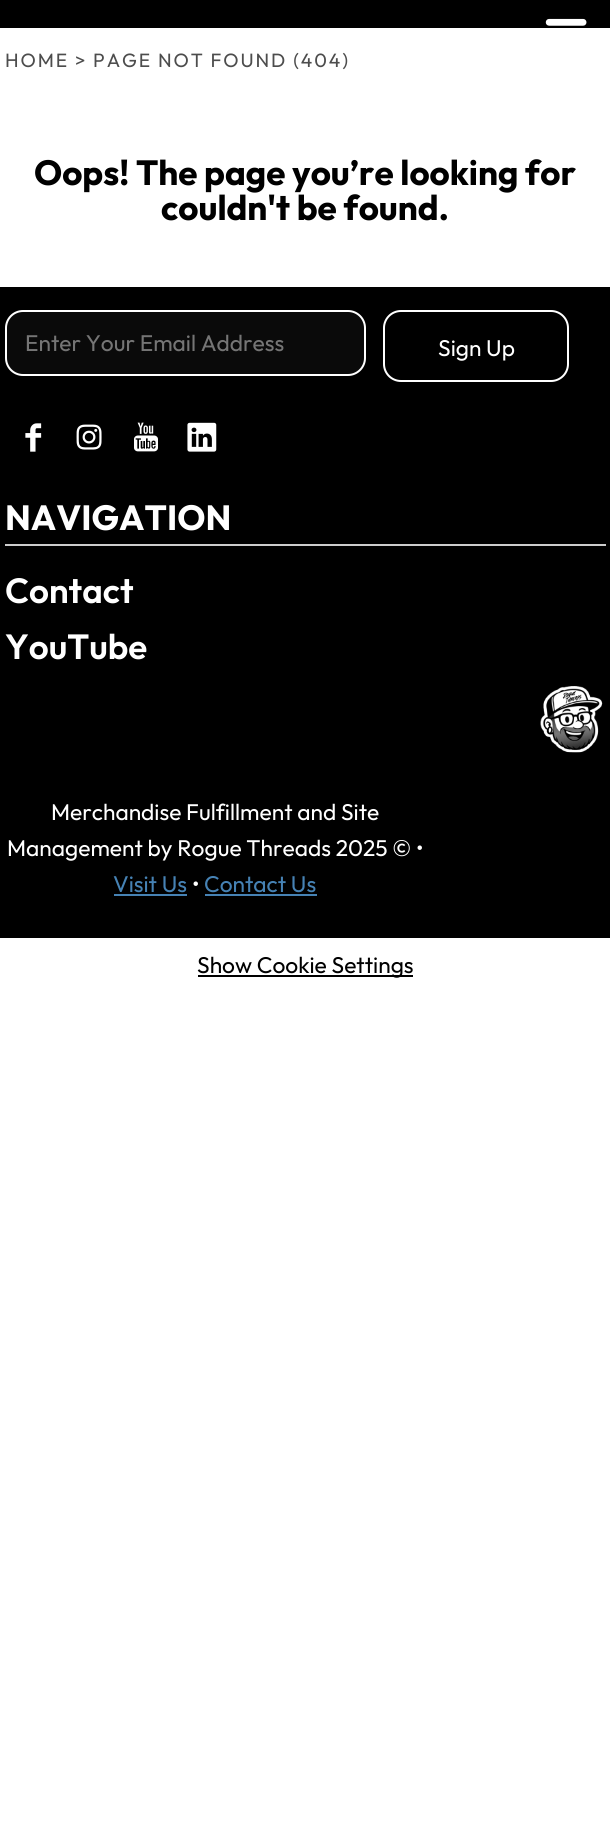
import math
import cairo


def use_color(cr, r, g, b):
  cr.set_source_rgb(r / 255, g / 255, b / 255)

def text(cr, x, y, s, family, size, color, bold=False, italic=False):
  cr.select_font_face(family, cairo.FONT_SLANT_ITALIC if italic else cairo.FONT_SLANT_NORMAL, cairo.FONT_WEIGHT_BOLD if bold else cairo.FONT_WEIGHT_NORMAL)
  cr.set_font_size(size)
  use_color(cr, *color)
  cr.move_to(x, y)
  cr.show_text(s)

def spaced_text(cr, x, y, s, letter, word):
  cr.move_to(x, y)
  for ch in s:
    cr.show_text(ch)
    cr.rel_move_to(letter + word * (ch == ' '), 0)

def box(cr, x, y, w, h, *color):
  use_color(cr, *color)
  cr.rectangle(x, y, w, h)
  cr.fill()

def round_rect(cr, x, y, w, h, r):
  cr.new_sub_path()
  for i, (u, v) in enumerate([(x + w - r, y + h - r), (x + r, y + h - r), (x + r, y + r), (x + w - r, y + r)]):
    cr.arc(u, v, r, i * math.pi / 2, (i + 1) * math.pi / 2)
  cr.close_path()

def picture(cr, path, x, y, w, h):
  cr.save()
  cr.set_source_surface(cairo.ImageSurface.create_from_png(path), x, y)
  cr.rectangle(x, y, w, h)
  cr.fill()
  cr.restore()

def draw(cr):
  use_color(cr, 255, 255, 255)
  cr.paint()
  box(cr, 0, 0, 610, 28, 0, 0, 0)
  picture(cr, "img_01.png", 545, 18, 42, 8)
  box(cr, 0, 287, 610, 651, 0, 0, 0)
  use_color(cr, 10, 10, 10)
  round_rect(cr, 6, 311, 359, 64, 17)
  cr.fill_preserve()
  use_color(cr, 255, 255, 255)
  cr.stroke()
  round_rect(cr, 384, 311, 184, 70, 17)
  cr.stroke()
  picture(cr, "img_02.png", 25, 423, 17, 29)
  picture(cr, "img_03.png", 76, 424, 26, 26)
  box(cr, 5, 544, 601, 2, 204, 204, 204)
  picture(cr, "img_04.png", 540, 686, 63, 67)
  box(cr, 114, 894, 73, 2, 70, 130, 180)
  box(cr, 205, 894, 112, 2, 70, 130, 180)
  box(cr, 198, 975, 215, 2, 0, 0, 0)
  cr.select_font_face("Outfit")
  cr.set_font_size(19.25)
  use_color(cr, 77, 77, 77)
  spaced_text(cr, 5, 67, "HOME > PAGE NOT FOUND (404)", 1.9, 0)
  text(cr, 34, 185, "Oops! The page you’re looking for", "Outfit", 35, (0, 0, 0), bold=True)
  text(cr, 161, 220, "couldn't be found.", "Outfit", 35, (0, 0, 0), bold=True)
  text(cr, 25, 351, "Enter Your Email Address", "Outfit", 22.75, (117, 117, 117))
  text(cr, 438, 356, "Sign Up", "Outfit", 22.75, (255, 255, 255))
  text(cr, 130, 453, "1", "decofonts", 32, (255, 255, 255))
  text(cr, 186, 453, "?", "decofonts", 32, (255, 255, 255))
  text(cr, 5, 530, "NAVIGATION", "Outfit", 35, (255, 255, 255), bold=True)
  text(cr, 5, 603, "Contact", "Outfit SemiBold", 35, (255, 255, 255))
  text(cr, 5, 659, "YouTube", "Outfit SemiBold", 35, (255, 255, 255))
  text(cr, 51, 820, "Merchandise Fulfillment and Site", "Outfit", 22.75, (255, 255, 255))
  text(cr, 7, 856, "Management by Rogue Threads 2025 © •", "Outfit", 22.75, (255, 255, 255))
  text(cr, 113, 892, "Visit Us", "Outfit", 22.75, (70, 130, 180))
  text(cr, 192, 892, "•", "Outfit", 22.75, (255, 255, 255))
  text(cr, 204, 892, "Contact Us", "Outfit", 22.75, (70, 130, 180))
  text(cr, 197, 973, "Show Cookie Settings", "Outfit", 22.75, (0, 0, 0))


surface = cairo.ImageSurface(cairo.FORMAT_RGB24, 610, 1833)
cr = cairo.Context(surface)
options = cairo.FontOptions()
options.set_hint_metrics(cairo.HINT_METRICS_OFF)
options.set_hint_style(cairo.HINT_STYLE_NONE)
cr.set_font_options(options)
cr.set_miter_limit(4)
draw(cr)
surface.write_to_png("out.png")
